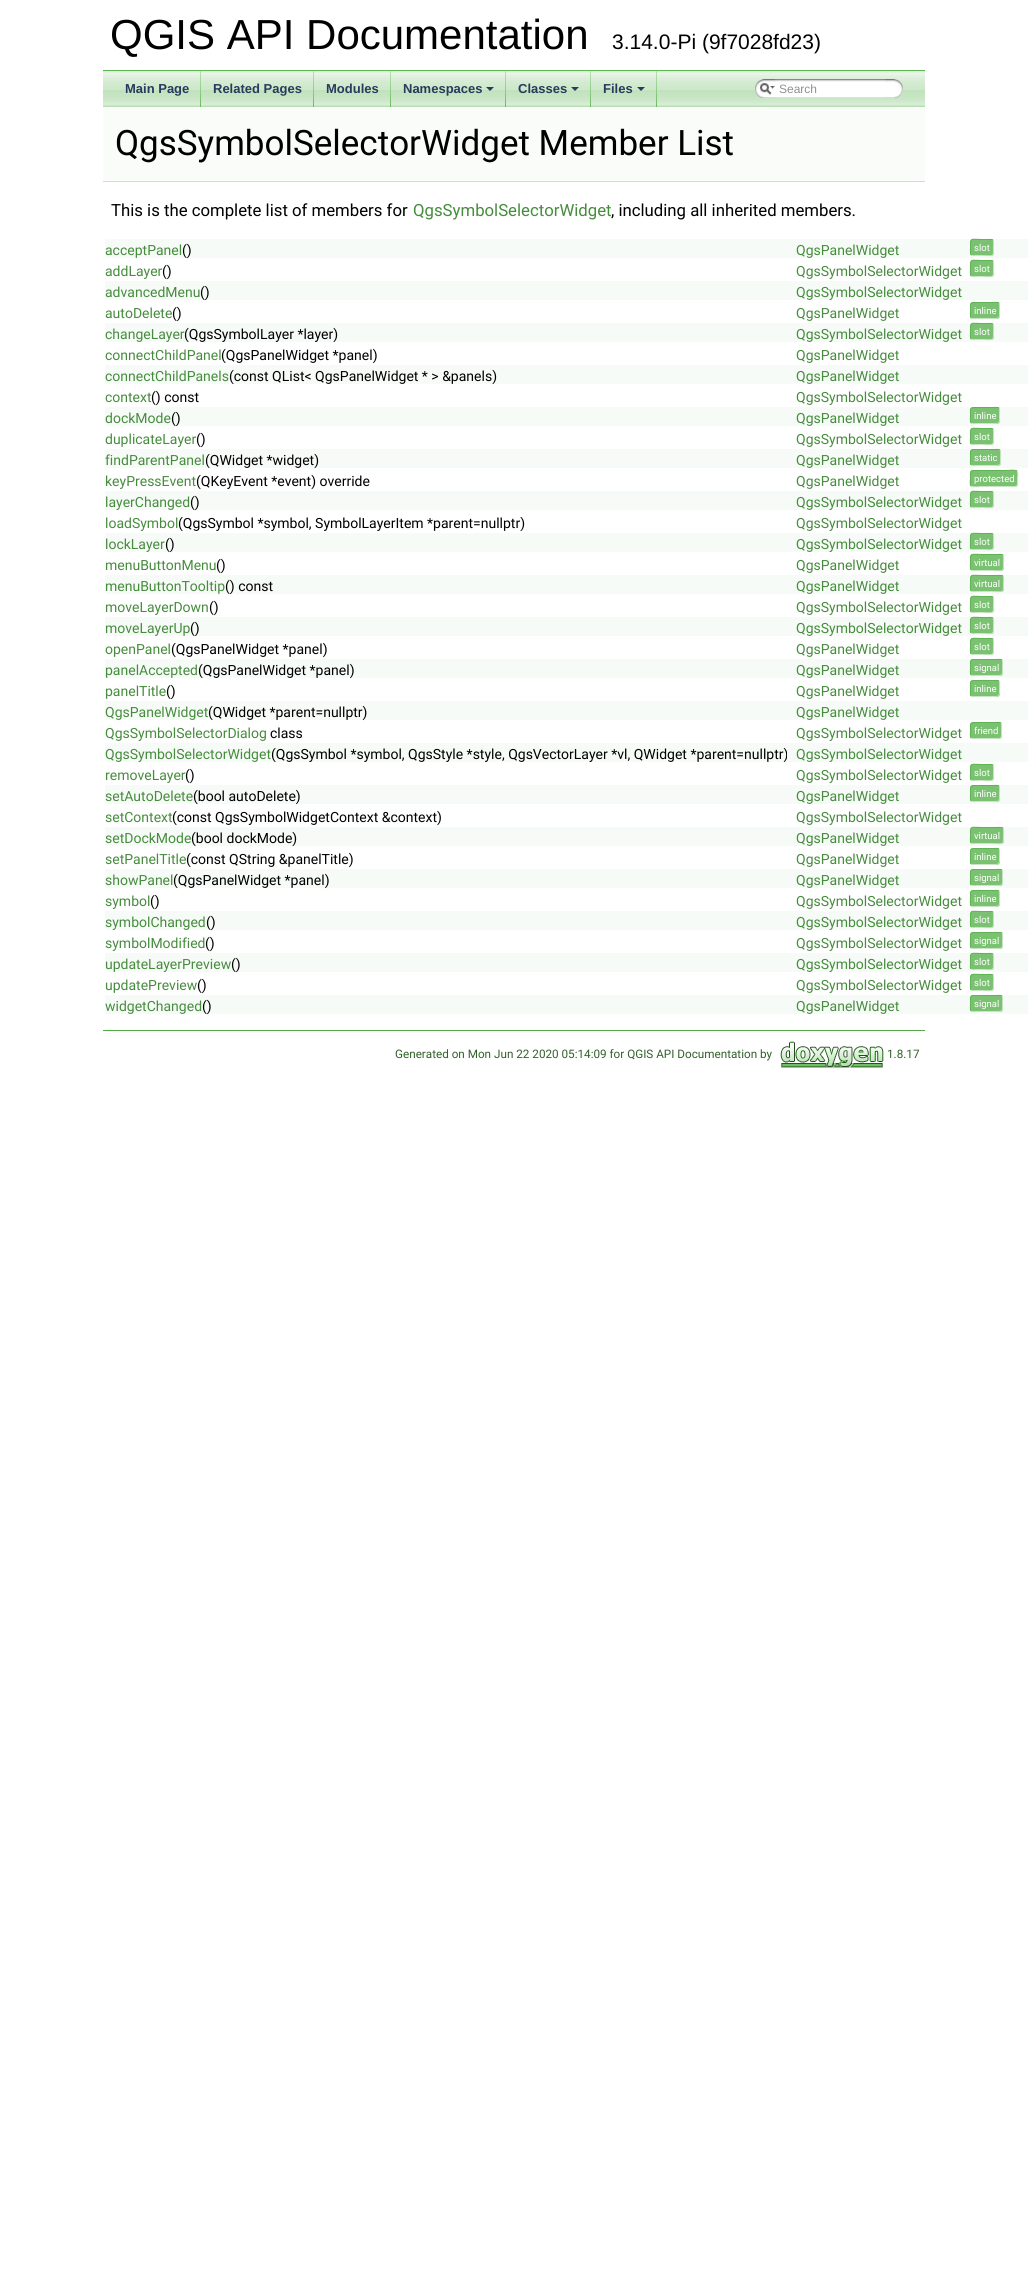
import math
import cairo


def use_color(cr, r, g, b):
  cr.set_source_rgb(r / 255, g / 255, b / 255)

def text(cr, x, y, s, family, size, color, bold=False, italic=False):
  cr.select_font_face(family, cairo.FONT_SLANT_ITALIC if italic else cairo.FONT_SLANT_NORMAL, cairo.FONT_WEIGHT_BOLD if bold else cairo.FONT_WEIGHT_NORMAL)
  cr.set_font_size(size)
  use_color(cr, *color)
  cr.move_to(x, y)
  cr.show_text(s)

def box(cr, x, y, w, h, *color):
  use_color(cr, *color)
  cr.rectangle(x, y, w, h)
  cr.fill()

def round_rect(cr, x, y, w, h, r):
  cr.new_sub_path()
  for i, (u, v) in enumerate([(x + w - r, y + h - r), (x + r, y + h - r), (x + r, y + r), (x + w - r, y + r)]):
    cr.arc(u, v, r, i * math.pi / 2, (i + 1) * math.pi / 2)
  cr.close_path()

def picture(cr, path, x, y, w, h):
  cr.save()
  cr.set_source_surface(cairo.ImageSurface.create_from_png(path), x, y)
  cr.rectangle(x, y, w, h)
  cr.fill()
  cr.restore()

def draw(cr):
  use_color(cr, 255, 255, 255)
  cr.paint()
  box(cr, 103, 70, 822, 1, 95, 180, 83)
  picture(cr, "img_01.png", 103, 71, 822, 36)
  picture(cr, "img_02.png", 200, 71, 1, 36)
  picture(cr, "img_02.png", 313, 71, 1, 36)
  picture(cr, "img_02.png", 390, 71, 1, 36)
  picture(cr, "img_02.png", 505, 71, 1, 36)
  use_color(cr, 40, 58, 93)
  cr.new_path()
  cr.move_to(486, 87)
  cr.line_to(494, 87)
  cr.line_to(490, 91)
  cr.close_path()
  cr.fill()
  picture(cr, "img_02.png", 590, 71, 1, 36)
  cr.new_path()
  cr.move_to(571, 87)
  cr.line_to(579, 87)
  cr.line_to(575, 91)
  cr.close_path()
  cr.fill()
  picture(cr, "img_02.png", 656, 71, 1, 36)
  cr.new_path()
  cr.move_to(637, 87)
  cr.line_to(645, 87)
  cr.line_to(641, 91)
  cr.close_path()
  cr.fill()
  picture(cr, "img_03.png", 755, 79, 20, 19)
  picture(cr, "img_04.png", 760, 83, 15, 12)
  picture(cr, "img_05.png", 775, 79, 110, 19)
  picture(cr, "img_06.png", 885, 79, 18, 19)
  box(cr, 103, 107, 822, 74, 249, 252, 249)
  box(cr, 103, 181, 822, 1, 200, 229, 196)
  box(cr, 105, 239, 923, 19, 247, 251, 247)
  use_color(cr, 123, 193, 114)
  round_rect(cr, 970, 239, 24, 17, 3)
  cr.fill()
  cr.new_path()
  cr.move_to(993, 240)
  cr.curve_to(994, 241.5, 993.5, 246, 993.5, 247.5)
  cr.curve_to(993.5, 258, 993.5, 255.5, 982, 255.5)
  cr.line_to(976, 255.5)
  cr.curve_to(974.5, 255.5, 972.5, 256, 971, 255)
  use_color(cr, 200, 229, 196)
  cr.set_line_width(1)
  cr.stroke()
  cr.new_path()
  cr.move_to(971, 255)
  cr.curve_to(970, 253.5, 970.5, 249, 970.5, 247.5)
  cr.curve_to(970.5, 237, 970.5, 239.5, 982, 239.5)
  cr.line_to(988, 239.5)
  cr.curve_to(989.5, 239.5, 991.5, 239, 993, 240)
  use_color(cr, 95, 180, 83)
  cr.stroke()
  use_color(cr, 123, 193, 114)
  round_rect(cr, 970, 260, 24, 17, 3)
  cr.fill()
  cr.new_path()
  cr.move_to(993, 261)
  cr.curve_to(994, 262.5, 993.5, 267, 993.5, 268.5)
  cr.curve_to(993.5, 279, 993.5, 276.5, 982, 276.5)
  cr.line_to(976, 276.5)
  cr.curve_to(974.5, 276.5, 972.5, 277, 971, 276)
  use_color(cr, 200, 229, 196)
  cr.stroke()
  cr.new_path()
  cr.move_to(971, 276)
  cr.curve_to(970, 274.5, 970.5, 270, 970.5, 268.5)
  cr.curve_to(970.5, 258, 970.5, 260.5, 982, 260.5)
  cr.line_to(988, 260.5)
  cr.curve_to(989.5, 260.5, 991.5, 260, 993, 261)
  use_color(cr, 95, 180, 83)
  cr.stroke()
  box(cr, 105, 281, 923, 19, 247, 251, 247)
  use_color(cr, 123, 193, 114)
  round_rect(cr, 970, 302, 30, 17, 3)
  cr.fill()
  cr.new_path()
  cr.move_to(999, 303)
  cr.curve_to(1000, 304.5, 999.5, 309, 999.5, 310.5)
  cr.curve_to(999.5, 318, 1000.5, 318.5, 993, 318.5)
  cr.line_to(977, 318.5)
  cr.curve_to(975.5, 318.5, 972.5, 319, 971, 318)
  use_color(cr, 200, 229, 196)
  cr.stroke()
  cr.new_path()
  cr.move_to(971, 318)
  cr.curve_to(970, 316.5, 970.5, 312, 970.5, 310.5)
  cr.curve_to(970.5, 303, 969.5, 302.5, 977, 302.5)
  cr.line_to(993, 302.5)
  cr.curve_to(994.5, 302.5, 997.5, 302, 999, 303)
  use_color(cr, 95, 180, 83)
  cr.stroke()
  box(cr, 105, 323, 923, 19, 247, 251, 247)
  use_color(cr, 123, 193, 114)
  round_rect(cr, 970, 323, 24, 17, 3)
  cr.fill()
  cr.new_path()
  cr.move_to(993, 324)
  cr.curve_to(994, 325.5, 993.5, 330, 993.5, 331.5)
  cr.curve_to(993.5, 342, 993.5, 339.5, 982, 339.5)
  cr.line_to(976, 339.5)
  cr.curve_to(974.5, 339.5, 972.5, 340, 971, 339)
  use_color(cr, 200, 229, 196)
  cr.stroke()
  cr.new_path()
  cr.move_to(971, 339)
  cr.curve_to(970, 337.5, 970.5, 333, 970.5, 331.5)
  cr.curve_to(970.5, 321, 970.5, 323.5, 982, 323.5)
  cr.line_to(988, 323.5)
  cr.curve_to(989.5, 323.5, 991.5, 323, 993, 324)
  use_color(cr, 95, 180, 83)
  cr.stroke()
  box(cr, 105, 365, 923, 19, 247, 251, 247)
  box(cr, 105, 407, 923, 19, 247, 251, 247)
  use_color(cr, 123, 193, 114)
  round_rect(cr, 970, 407, 30, 17, 3)
  cr.fill()
  cr.new_path()
  cr.move_to(999, 408)
  cr.curve_to(1000, 409.5, 999.5, 414, 999.5, 415.5)
  cr.curve_to(999.5, 423, 1000.5, 423.5, 993, 423.5)
  cr.line_to(977, 423.5)
  cr.curve_to(975.5, 423.5, 972.5, 424, 971, 423)
  use_color(cr, 200, 229, 196)
  cr.stroke()
  cr.new_path()
  cr.move_to(971, 423)
  cr.curve_to(970, 421.5, 970.5, 417, 970.5, 415.5)
  cr.curve_to(970.5, 408, 969.5, 407.5, 977, 407.5)
  cr.line_to(993, 407.5)
  cr.curve_to(994.5, 407.5, 997.5, 407, 999, 408)
  use_color(cr, 95, 180, 83)
  cr.stroke()
  use_color(cr, 123, 193, 114)
  round_rect(cr, 970, 428, 24, 17, 3)
  cr.fill()
  cr.new_path()
  cr.move_to(993, 429)
  cr.curve_to(994, 430.5, 993.5, 435, 993.5, 436.5)
  cr.curve_to(993.5, 447, 993.5, 444.5, 982, 444.5)
  cr.line_to(976, 444.5)
  cr.curve_to(974.5, 444.5, 972.5, 445, 971, 444)
  use_color(cr, 200, 229, 196)
  cr.stroke()
  cr.new_path()
  cr.move_to(971, 444)
  cr.curve_to(970, 442.5, 970.5, 438, 970.5, 436.5)
  cr.curve_to(970.5, 426, 970.5, 428.5, 982, 428.5)
  cr.line_to(988, 428.5)
  cr.curve_to(989.5, 428.5, 991.5, 428, 993, 429)
  use_color(cr, 95, 180, 83)
  cr.stroke()
  box(cr, 105, 449, 923, 19, 247, 251, 247)
  use_color(cr, 123, 193, 114)
  round_rect(cr, 970, 449, 31, 17, 3)
  cr.fill()
  cr.new_path()
  cr.move_to(1000, 450)
  cr.curve_to(1001, 451.5, 1000.5, 456, 1000.5, 457.5)
  cr.curve_to(1000.5, 465, 1001.5, 465.5, 994, 465.5)
  cr.line_to(977, 465.5)
  cr.curve_to(976, 465.5, 972.5, 466, 971, 465)
  use_color(cr, 200, 229, 196)
  cr.stroke()
  cr.new_path()
  cr.move_to(971, 465)
  cr.curve_to(970, 463.5, 970.5, 459, 970.5, 457.5)
  cr.curve_to(970.5, 450, 969.5, 449.5, 977, 449.5)
  cr.line_to(994, 449.5)
  cr.curve_to(995, 449.5, 998.5, 449, 1000, 450)
  use_color(cr, 95, 180, 83)
  cr.stroke()
  use_color(cr, 123, 193, 114)
  round_rect(cr, 970, 470, 48, 17, 3)
  cr.fill()
  cr.new_path()
  cr.move_to(1017, 471)
  cr.curve_to(1018.5, 473, 1017.5, 476.5, 1017.5, 478.5)
  cr.curve_to(1017.5, 488, 1018, 486.5, 1008, 486.5)
  cr.line_to(980, 486.5)
  cr.curve_to(980, 486.5, 973, 487.5, 971, 486)
  use_color(cr, 200, 229, 196)
  cr.stroke()
  cr.new_path()
  cr.move_to(971, 486)
  cr.curve_to(969.5, 484, 970.5, 480.5, 970.5, 478.5)
  cr.curve_to(970.5, 469, 970, 470.5, 980, 470.5)
  cr.line_to(1008, 470.5)
  cr.curve_to(1008, 470.5, 1015, 469.5, 1017, 471)
  use_color(cr, 95, 180, 83)
  cr.stroke()
  box(cr, 105, 491, 923, 19, 247, 251, 247)
  use_color(cr, 123, 193, 114)
  round_rect(cr, 970, 491, 24, 17, 3)
  cr.fill()
  cr.new_path()
  cr.move_to(993, 492)
  cr.curve_to(994, 493.5, 993.5, 498, 993.5, 499.5)
  cr.curve_to(993.5, 510, 993.5, 507.5, 982, 507.5)
  cr.line_to(976, 507.5)
  cr.curve_to(974.5, 507.5, 972.5, 508, 971, 507)
  use_color(cr, 200, 229, 196)
  cr.stroke()
  cr.new_path()
  cr.move_to(971, 507)
  cr.curve_to(970, 505.5, 970.5, 501, 970.5, 499.5)
  cr.curve_to(970.5, 489, 970.5, 491.5, 982, 491.5)
  cr.line_to(988, 491.5)
  cr.curve_to(989.5, 491.5, 991.5, 491, 993, 492)
  use_color(cr, 95, 180, 83)
  cr.stroke()
  box(cr, 105, 533, 923, 19, 247, 251, 247)
  use_color(cr, 123, 193, 114)
  round_rect(cr, 970, 533, 24, 17, 3)
  cr.fill()
  cr.new_path()
  cr.move_to(993, 534)
  cr.curve_to(994, 535.5, 993.5, 540, 993.5, 541.5)
  cr.curve_to(993.5, 552, 993.5, 549.5, 982, 549.5)
  cr.line_to(976, 549.5)
  cr.curve_to(974.5, 549.5, 972.5, 550, 971, 549)
  use_color(cr, 200, 229, 196)
  cr.stroke()
  cr.new_path()
  cr.move_to(971, 549)
  cr.curve_to(970, 547.5, 970.5, 543, 970.5, 541.5)
  cr.curve_to(970.5, 531, 970.5, 533.5, 982, 533.5)
  cr.line_to(988, 533.5)
  cr.curve_to(989.5, 533.5, 991.5, 533, 993, 534)
  use_color(cr, 95, 180, 83)
  cr.stroke()
  use_color(cr, 123, 193, 114)
  round_rect(cr, 970, 554, 34, 17, 3)
  cr.fill()
  cr.new_path()
  cr.move_to(1003, 555)
  cr.curve_to(1004, 556.5, 1003.5, 561, 1003.5, 562.5)
  cr.curve_to(1003.5, 573, 1003.5, 570.5, 991.5, 570.5)
  cr.line_to(977.5, 570.5)
  cr.curve_to(976.5, 570.5, 972.5, 571, 971, 570)
  use_color(cr, 200, 229, 196)
  cr.stroke()
  cr.new_path()
  cr.move_to(971, 570)
  cr.curve_to(970, 568.5, 970.5, 564, 970.5, 562.5)
  cr.curve_to(970.5, 552, 970.5, 554.5, 982.5, 554.5)
  cr.line_to(996.5, 554.5)
  cr.curve_to(997.5, 554.5, 1001.5, 554, 1003, 555)
  use_color(cr, 95, 180, 83)
  cr.stroke()
  box(cr, 105, 575, 923, 19, 247, 251, 247)
  use_color(cr, 123, 193, 114)
  round_rect(cr, 970, 575, 34, 17, 3)
  cr.fill()
  cr.new_path()
  cr.move_to(1003, 576)
  cr.curve_to(1004, 577.5, 1003.5, 582, 1003.5, 583.5)
  cr.curve_to(1003.5, 594, 1003.5, 591.5, 991.5, 591.5)
  cr.line_to(977.5, 591.5)
  cr.curve_to(976.5, 591.5, 972.5, 592, 971, 591)
  use_color(cr, 200, 229, 196)
  cr.stroke()
  cr.new_path()
  cr.move_to(971, 591)
  cr.curve_to(970, 589.5, 970.5, 585, 970.5, 583.5)
  cr.curve_to(970.5, 573, 970.5, 575.5, 982.5, 575.5)
  cr.line_to(996.5, 575.5)
  cr.curve_to(997.5, 575.5, 1001.5, 575, 1003, 576)
  use_color(cr, 95, 180, 83)
  cr.stroke()
  use_color(cr, 123, 193, 114)
  round_rect(cr, 970, 596, 24, 17, 3)
  cr.fill()
  cr.new_path()
  cr.move_to(993, 597)
  cr.curve_to(994, 598.5, 993.5, 603, 993.5, 604.5)
  cr.curve_to(993.5, 615, 993.5, 612.5, 982, 612.5)
  cr.line_to(976, 612.5)
  cr.curve_to(974.5, 612.5, 972.5, 613, 971, 612)
  use_color(cr, 200, 229, 196)
  cr.stroke()
  cr.new_path()
  cr.move_to(971, 612)
  cr.curve_to(970, 610.5, 970.5, 606, 970.5, 604.5)
  cr.curve_to(970.5, 594, 970.5, 596.5, 982, 596.5)
  cr.line_to(988, 596.5)
  cr.curve_to(989.5, 596.5, 991.5, 596, 993, 597)
  use_color(cr, 95, 180, 83)
  cr.stroke()
  box(cr, 105, 617, 923, 19, 247, 251, 247)
  use_color(cr, 123, 193, 114)
  round_rect(cr, 970, 617, 24, 17, 3)
  cr.fill()
  cr.new_path()
  cr.move_to(993, 618)
  cr.curve_to(994, 619.5, 993.5, 624, 993.5, 625.5)
  cr.curve_to(993.5, 636, 993.5, 633.5, 982, 633.5)
  cr.line_to(976, 633.5)
  cr.curve_to(974.5, 633.5, 972.5, 634, 971, 633)
  use_color(cr, 200, 229, 196)
  cr.stroke()
  cr.new_path()
  cr.move_to(971, 633)
  cr.curve_to(970, 631.5, 970.5, 627, 970.5, 625.5)
  cr.curve_to(970.5, 615, 970.5, 617.5, 982, 617.5)
  cr.line_to(988, 617.5)
  cr.curve_to(989.5, 617.5, 991.5, 617, 993, 618)
  use_color(cr, 95, 180, 83)
  cr.stroke()
  use_color(cr, 123, 193, 114)
  round_rect(cr, 970, 638, 24, 17, 3)
  cr.fill()
  cr.new_path()
  cr.move_to(993, 639)
  cr.curve_to(994, 640.5, 993.5, 645, 993.5, 646.5)
  cr.curve_to(993.5, 657, 993.5, 654.5, 982, 654.5)
  cr.line_to(976, 654.5)
  cr.curve_to(974.5, 654.5, 972.5, 655, 971, 654)
  use_color(cr, 200, 229, 196)
  cr.stroke()
  cr.new_path()
  cr.move_to(971, 654)
  cr.curve_to(970, 652.5, 970.5, 648, 970.5, 646.5)
  cr.curve_to(970.5, 636, 970.5, 638.5, 982, 638.5)
  cr.line_to(988, 638.5)
  cr.curve_to(989.5, 638.5, 991.5, 638, 993, 639)
  use_color(cr, 95, 180, 83)
  cr.stroke()
  box(cr, 105, 659, 923, 19, 247, 251, 247)
  use_color(cr, 123, 193, 114)
  round_rect(cr, 970, 659, 33, 17, 3)
  cr.fill()
  cr.new_path()
  cr.move_to(1002, 660)
  cr.curve_to(1003, 661.5, 1002.5, 666, 1002.5, 667.5)
  cr.curve_to(1002.5, 675.5, 1003.5, 675.5, 995.5, 675.5)
  cr.line_to(977.5, 675.5)
  cr.curve_to(976.5, 675.5, 972.5, 676, 971, 675)
  use_color(cr, 200, 229, 196)
  cr.stroke()
  cr.new_path()
  cr.move_to(971, 675)
  cr.curve_to(970, 673.5, 970.5, 669, 970.5, 667.5)
  cr.curve_to(970.5, 659.5, 969.5, 659.5, 977.5, 659.5)
  cr.line_to(995.5, 659.5)
  cr.curve_to(996.5, 659.5, 1000.5, 659, 1002, 660)
  use_color(cr, 95, 180, 83)
  cr.stroke()
  use_color(cr, 123, 193, 114)
  round_rect(cr, 970, 680, 30, 17, 3)
  cr.fill()
  cr.new_path()
  cr.move_to(999, 681)
  cr.curve_to(1000, 682.5, 999.5, 687, 999.5, 688.5)
  cr.curve_to(999.5, 696, 1000.5, 696.5, 993, 696.5)
  cr.line_to(977, 696.5)
  cr.curve_to(975.5, 696.5, 972.5, 697, 971, 696)
  use_color(cr, 200, 229, 196)
  cr.stroke()
  cr.new_path()
  cr.move_to(971, 696)
  cr.curve_to(970, 694.5, 970.5, 690, 970.5, 688.5)
  cr.curve_to(970.5, 681, 969.5, 680.5, 977, 680.5)
  cr.line_to(993, 680.5)
  cr.curve_to(994.5, 680.5, 997.5, 680, 999, 681)
  use_color(cr, 95, 180, 83)
  cr.stroke()
  box(cr, 105, 701, 923, 19, 247, 251, 247)
  use_color(cr, 123, 193, 114)
  round_rect(cr, 970, 722, 32, 17, 3)
  cr.fill()
  cr.new_path()
  cr.move_to(1001, 723)
  cr.curve_to(1002, 724.5, 1001.5, 729, 1001.5, 730.5)
  cr.curve_to(1001.5, 738.5, 1002.5, 738.5, 994.5, 738.5)
  cr.line_to(977.5, 738.5)
  cr.curve_to(976, 738.5, 972.5, 739, 971, 738)
  use_color(cr, 200, 229, 196)
  cr.stroke()
  cr.new_path()
  cr.move_to(971, 738)
  cr.curve_to(970, 736.5, 970.5, 732, 970.5, 730.5)
  cr.curve_to(970.5, 722.5, 969.5, 722.5, 977.5, 722.5)
  cr.line_to(994.5, 722.5)
  cr.curve_to(996, 722.5, 999.5, 722, 1001, 723)
  use_color(cr, 95, 180, 83)
  cr.stroke()
  box(cr, 105, 743, 923, 19, 247, 251, 247)
  use_color(cr, 123, 193, 114)
  round_rect(cr, 970, 764, 24, 17, 3)
  cr.fill()
  cr.new_path()
  cr.move_to(993, 765)
  cr.curve_to(994, 766.5, 993.5, 771, 993.5, 772.5)
  cr.curve_to(993.5, 783, 993.5, 780.5, 982, 780.5)
  cr.line_to(976, 780.5)
  cr.curve_to(974.5, 780.5, 972.5, 781, 971, 780)
  use_color(cr, 200, 229, 196)
  cr.stroke()
  cr.new_path()
  cr.move_to(971, 780)
  cr.curve_to(970, 778.5, 970.5, 774, 970.5, 772.5)
  cr.curve_to(970.5, 762, 970.5, 764.5, 982, 764.5)
  cr.line_to(988, 764.5)
  cr.curve_to(989.5, 764.5, 991.5, 764, 993, 765)
  use_color(cr, 95, 180, 83)
  cr.stroke()
  box(cr, 105, 785, 923, 19, 247, 251, 247)
  use_color(cr, 123, 193, 114)
  round_rect(cr, 970, 785, 30, 17, 3)
  cr.fill()
  cr.new_path()
  cr.move_to(999, 786)
  cr.curve_to(1000, 787.5, 999.5, 792, 999.5, 793.5)
  cr.curve_to(999.5, 801, 1000.5, 801.5, 993, 801.5)
  cr.line_to(977, 801.5)
  cr.curve_to(975.5, 801.5, 972.5, 802, 971, 801)
  use_color(cr, 200, 229, 196)
  cr.stroke()
  cr.new_path()
  cr.move_to(971, 801)
  cr.curve_to(970, 799.5, 970.5, 795, 970.5, 793.5)
  cr.curve_to(970.5, 786, 969.5, 785.5, 977, 785.5)
  cr.line_to(993, 785.5)
  cr.curve_to(994.5, 785.5, 997.5, 785, 999, 786)
  use_color(cr, 95, 180, 83)
  cr.stroke()
  box(cr, 105, 827, 923, 19, 247, 251, 247)
  use_color(cr, 123, 193, 114)
  round_rect(cr, 970, 827, 34, 17, 3)
  cr.fill()
  cr.new_path()
  cr.move_to(1003, 828)
  cr.curve_to(1004, 829.5, 1003.5, 834, 1003.5, 835.5)
  cr.curve_to(1003.5, 846, 1003.5, 843.5, 991.5, 843.5)
  cr.line_to(977.5, 843.5)
  cr.curve_to(976.5, 843.5, 972.5, 844, 971, 843)
  use_color(cr, 200, 229, 196)
  cr.stroke()
  cr.new_path()
  cr.move_to(971, 843)
  cr.curve_to(970, 841.5, 970.5, 837, 970.5, 835.5)
  cr.curve_to(970.5, 825, 970.5, 827.5, 982.5, 827.5)
  cr.line_to(996.5, 827.5)
  cr.curve_to(997.5, 827.5, 1001.5, 827, 1003, 828)
  use_color(cr, 95, 180, 83)
  cr.stroke()
  use_color(cr, 123, 193, 114)
  round_rect(cr, 970, 848, 30, 17, 3)
  cr.fill()
  cr.new_path()
  cr.move_to(999, 849)
  cr.curve_to(1000, 850.5, 999.5, 855, 999.5, 856.5)
  cr.curve_to(999.5, 864, 1000.5, 864.5, 993, 864.5)
  cr.line_to(977, 864.5)
  cr.curve_to(975.5, 864.5, 972.5, 865, 971, 864)
  use_color(cr, 200, 229, 196)
  cr.stroke()
  cr.new_path()
  cr.move_to(971, 864)
  cr.curve_to(970, 862.5, 970.5, 858, 970.5, 856.5)
  cr.curve_to(970.5, 849, 969.5, 848.5, 977, 848.5)
  cr.line_to(993, 848.5)
  cr.curve_to(994.5, 848.5, 997.5, 848, 999, 849)
  use_color(cr, 95, 180, 83)
  cr.stroke()
  box(cr, 105, 869, 923, 19, 247, 251, 247)
  use_color(cr, 123, 193, 114)
  round_rect(cr, 970, 869, 33, 17, 3)
  cr.fill()
  cr.new_path()
  cr.move_to(1002, 870)
  cr.curve_to(1003, 871.5, 1002.5, 876, 1002.5, 877.5)
  cr.curve_to(1002.5, 885.5, 1003.5, 885.5, 995.5, 885.5)
  cr.line_to(977.5, 885.5)
  cr.curve_to(976.5, 885.5, 972.5, 886, 971, 885)
  use_color(cr, 200, 229, 196)
  cr.stroke()
  cr.new_path()
  cr.move_to(971, 885)
  cr.curve_to(970, 883.5, 970.5, 879, 970.5, 877.5)
  cr.curve_to(970.5, 869.5, 969.5, 869.5, 977.5, 869.5)
  cr.line_to(995.5, 869.5)
  cr.curve_to(996.5, 869.5, 1000.5, 869, 1002, 870)
  use_color(cr, 95, 180, 83)
  cr.stroke()
  use_color(cr, 123, 193, 114)
  round_rect(cr, 970, 890, 30, 17, 3)
  cr.fill()
  cr.new_path()
  cr.move_to(999, 891)
  cr.curve_to(1000, 892.5, 999.5, 897, 999.5, 898.5)
  cr.curve_to(999.5, 906, 1000.5, 906.5, 993, 906.5)
  cr.line_to(977, 906.5)
  cr.curve_to(975.5, 906.5, 972.5, 907, 971, 906)
  use_color(cr, 200, 229, 196)
  cr.stroke()
  cr.new_path()
  cr.move_to(971, 906)
  cr.curve_to(970, 904.5, 970.5, 900, 970.5, 898.5)
  cr.curve_to(970.5, 891, 969.5, 890.5, 977, 890.5)
  cr.line_to(993, 890.5)
  cr.curve_to(994.5, 890.5, 997.5, 890, 999, 891)
  use_color(cr, 95, 180, 83)
  cr.stroke()
  box(cr, 105, 911, 923, 19, 247, 251, 247)
  use_color(cr, 123, 193, 114)
  round_rect(cr, 970, 911, 24, 17, 3)
  cr.fill()
  cr.new_path()
  cr.move_to(993, 912)
  cr.curve_to(994, 913.5, 993.5, 918, 993.5, 919.5)
  cr.curve_to(993.5, 930, 993.5, 927.5, 982, 927.5)
  cr.line_to(976, 927.5)
  cr.curve_to(974.5, 927.5, 972.5, 928, 971, 927)
  use_color(cr, 200, 229, 196)
  cr.stroke()
  cr.new_path()
  cr.move_to(971, 927)
  cr.curve_to(970, 925.5, 970.5, 921, 970.5, 919.5)
  cr.curve_to(970.5, 909, 970.5, 911.5, 982, 911.5)
  cr.line_to(988, 911.5)
  cr.curve_to(989.5, 911.5, 991.5, 911, 993, 912)
  use_color(cr, 95, 180, 83)
  cr.stroke()
  use_color(cr, 123, 193, 114)
  round_rect(cr, 970, 932, 33, 17, 3)
  cr.fill()
  cr.new_path()
  cr.move_to(1002, 933)
  cr.curve_to(1003, 934.5, 1002.5, 939, 1002.5, 940.5)
  cr.curve_to(1002.5, 948.5, 1003.5, 948.5, 995.5, 948.5)
  cr.line_to(977.5, 948.5)
  cr.curve_to(976.5, 948.5, 972.5, 949, 971, 948)
  use_color(cr, 200, 229, 196)
  cr.stroke()
  cr.new_path()
  cr.move_to(971, 948)
  cr.curve_to(970, 946.5, 970.5, 942, 970.5, 940.5)
  cr.curve_to(970.5, 932.5, 969.5, 932.5, 977.5, 932.5)
  cr.line_to(995.5, 932.5)
  cr.curve_to(996.5, 932.5, 1000.5, 932, 1002, 933)
  use_color(cr, 95, 180, 83)
  cr.stroke()
  box(cr, 105, 953, 923, 19, 247, 251, 247)
  use_color(cr, 123, 193, 114)
  round_rect(cr, 970, 953, 24, 17, 3)
  cr.fill()
  cr.new_path()
  cr.move_to(993, 954)
  cr.curve_to(994, 955.5, 993.5, 960, 993.5, 961.5)
  cr.curve_to(993.5, 972, 993.5, 969.5, 982, 969.5)
  cr.line_to(976, 969.5)
  cr.curve_to(974.5, 969.5, 972.5, 970, 971, 969)
  use_color(cr, 200, 229, 196)
  cr.stroke()
  cr.new_path()
  cr.move_to(971, 969)
  cr.curve_to(970, 967.5, 970.5, 963, 970.5, 961.5)
  cr.curve_to(970.5, 951, 970.5, 953.5, 982, 953.5)
  cr.line_to(988, 953.5)
  cr.curve_to(989.5, 953.5, 991.5, 953, 993, 954)
  use_color(cr, 95, 180, 83)
  cr.stroke()
  use_color(cr, 123, 193, 114)
  round_rect(cr, 970, 974, 24, 17, 3)
  cr.fill()
  cr.new_path()
  cr.move_to(993, 975)
  cr.curve_to(994, 976.5, 993.5, 981, 993.5, 982.5)
  cr.curve_to(993.5, 993, 993.5, 990.5, 982, 990.5)
  cr.line_to(976, 990.5)
  cr.curve_to(974.5, 990.5, 972.5, 991, 971, 990)
  use_color(cr, 200, 229, 196)
  cr.stroke()
  cr.new_path()
  cr.move_to(971, 990)
  cr.curve_to(970, 988.5, 970.5, 984, 970.5, 982.5)
  cr.curve_to(970.5, 972, 970.5, 974.5, 982, 974.5)
  cr.line_to(988, 974.5)
  cr.curve_to(989.5, 974.5, 991.5, 974, 993, 975)
  use_color(cr, 95, 180, 83)
  cr.stroke()
  box(cr, 105, 995, 923, 19, 247, 251, 247)
  use_color(cr, 123, 193, 114)
  round_rect(cr, 970, 995, 33, 17, 3)
  cr.fill()
  cr.new_path()
  cr.move_to(1002, 996)
  cr.curve_to(1003, 997.5, 1002.5, 1002, 1002.5, 1003.5)
  cr.curve_to(1002.5, 1011.5, 1003.5, 1011.5, 995.5, 1011.5)
  cr.line_to(977.5, 1011.5)
  cr.curve_to(976.5, 1011.5, 972.5, 1012, 971, 1011)
  use_color(cr, 200, 229, 196)
  cr.stroke()
  cr.new_path()
  cr.move_to(971, 1011)
  cr.curve_to(970, 1009.5, 970.5, 1005, 970.5, 1003.5)
  cr.curve_to(970.5, 995.5, 969.5, 995.5, 977.5, 995.5)
  cr.line_to(995.5, 995.5)
  cr.curve_to(996.5, 995.5, 1000.5, 995, 1002, 996)
  use_color(cr, 95, 180, 83)
  cr.stroke()
  box(cr, 103, 1030, 822, 1, 85, 170, 74)
  picture(cr, "img_07.png", 780, 1041, 104, 27)
  text(cr, 110, 49, "QGIS API Documentation", "Liberation Sans", 42, (0, 0, 0))
  text(cr, 612, 49, "3.14.0-Pi (9f7028fd23)", "Liberation Sans", 21, (0, 0, 0))
  text(cr, 125, 93, "Main Page", "Liberation Sans", 13, (40, 58, 93), bold=True)
  text(cr, 213, 93, "Related Pages", "Liberation Sans", 13, (40, 58, 93), bold=True)
  text(cr, 326, 93, "Modules", "Liberation Sans", 13, (40, 58, 93), bold=True)
  text(cr, 403, 93, "Namespaces", "Liberation Sans", 13, (40, 58, 93), bold=True)
  text(cr, 518, 93, "Classes", "Liberation Sans", 13, (40, 58, 93), bold=True)
  text(cr, 603, 93, "Files", "Liberation Sans", 13, (40, 58, 93), bold=True)
  text(cr, 779, 93, "Search", "Liberation Sans", 12, (144, 144, 144))
  text(cr, 115, 155, "QgsSymbolSelectorWidget Member List", "Roboto", 35, (0, 0, 0))
  text(cr, 111, 216, "This is the complete list of members for", "Roboto", 16.75, (0, 0, 0))
  text(cr, 413, 216, "QgsSymbolSelectorWidget", "Roboto", 16.75, (70, 140, 61))
  text(cr, 611, 216, ", including all inherited members.", "Roboto", 16.75, (0, 0, 0))
  text(cr, 105, 255, "acceptPanel", "Roboto", 14, (70, 140, 61))
  text(cr, 182, 255, "()", "Roboto", 14, (0, 0, 0))
  text(cr, 796, 255, "QgsPanelWidget", "Roboto", 14, (70, 140, 61))
  text(cr, 974, 251, "slot", "Roboto", 9.5, (255, 255, 255))
  text(cr, 105, 276, "addLayer", "Roboto", 14, (70, 140, 61))
  text(cr, 162, 276, "()", "Roboto", 14, (0, 0, 0))
  text(cr, 796, 276, "QgsSymbolSelectorWidget", "Roboto", 14, (70, 140, 61))
  text(cr, 974, 272, "slot", "Roboto", 9.5, (255, 255, 255))
  text(cr, 105, 297, "advancedMenu", "Roboto", 14, (70, 140, 61))
  text(cr, 200, 297, "()", "Roboto", 14, (0, 0, 0))
  text(cr, 796, 297, "QgsSymbolSelectorWidget", "Roboto", 14, (70, 140, 61))
  text(cr, 105, 318, "autoDelete", "Roboto", 14, (70, 140, 61))
  text(cr, 172, 318, "()", "Roboto", 14, (0, 0, 0))
  text(cr, 796, 318, "QgsPanelWidget", "Roboto", 14, (70, 140, 61))
  text(cr, 974, 314, "inline", "Roboto", 9.5, (255, 255, 255))
  text(cr, 105, 339, "changeLayer", "Roboto", 14, (70, 140, 61))
  text(cr, 184, 339, "(QgsSymbolLayer *layer)", "Roboto", 14, (0, 0, 0))
  text(cr, 796, 339, "QgsSymbolSelectorWidget", "Roboto", 14, (70, 140, 61))
  text(cr, 974, 335, "slot", "Roboto", 9.5, (255, 255, 255))
  text(cr, 105, 360, "connectChildPanel", "Roboto", 14, (70, 140, 61))
  text(cr, 221, 360, "(QgsPanelWidget *panel)", "Roboto", 14, (0, 0, 0))
  text(cr, 796, 360, "QgsPanelWidget", "Roboto", 14, (70, 140, 61))
  text(cr, 105, 381, "connectChildPanels", "Roboto", 14, (70, 140, 61))
  text(cr, 229, 381, "(const QList< QgsPanelWidget * > &panels)", "Roboto", 14, (0, 0, 0))
  text(cr, 796, 381, "QgsPanelWidget", "Roboto", 14, (70, 140, 61))
  text(cr, 105, 402, "context", "Roboto", 14, (70, 140, 61))
  text(cr, 151, 402, "() const", "Roboto", 14, (0, 0, 0))
  text(cr, 796, 402, "QgsSymbolSelectorWidget", "Roboto", 14, (70, 140, 61))
  text(cr, 105, 423, "dockMode", "Roboto", 14, (70, 140, 61))
  text(cr, 171, 423, "()", "Roboto", 14, (0, 0, 0))
  text(cr, 796, 423, "QgsPanelWidget", "Roboto", 14, (70, 140, 61))
  text(cr, 974, 419, "inline", "Roboto", 9.5, (255, 255, 255))
  text(cr, 105, 444, "duplicateLayer", "Roboto", 14, (70, 140, 61))
  text(cr, 196, 444, "()", "Roboto", 14, (0, 0, 0))
  text(cr, 796, 444, "QgsSymbolSelectorWidget", "Roboto", 14, (70, 140, 61))
  text(cr, 974, 440, "slot", "Roboto", 9.5, (255, 255, 255))
  text(cr, 105, 465, "findParentPanel", "Roboto", 14, (70, 140, 61))
  text(cr, 205, 465, "(QWidget *widget)", "Roboto", 14, (0, 0, 0))
  text(cr, 796, 465, "QgsPanelWidget", "Roboto", 14, (70, 140, 61))
  text(cr, 974, 461, "static", "Roboto", 9.5, (255, 255, 255))
  text(cr, 105, 486, "keyPressEvent", "Roboto", 14, (70, 140, 61))
  text(cr, 196, 486, "(QKeyEvent *event) override", "Roboto", 14, (0, 0, 0))
  text(cr, 796, 486, "QgsPanelWidget", "Roboto", 14, (70, 140, 61))
  text(cr, 974, 482, "protected", "Roboto", 9.5, (255, 255, 255))
  text(cr, 105, 507, "layerChanged", "Roboto", 14, (70, 140, 61))
  text(cr, 190, 507, "()", "Roboto", 14, (0, 0, 0))
  text(cr, 796, 507, "QgsSymbolSelectorWidget", "Roboto", 14, (70, 140, 61))
  text(cr, 974, 503, "slot", "Roboto", 9.5, (255, 255, 255))
  text(cr, 105, 528, "loadSymbol", "Roboto", 14, (70, 140, 61))
  text(cr, 178, 528, "(QgsSymbol *symbol, SymbolLayerItem *parent=nullptr)", "Roboto", 14, (0, 0, 0))
  text(cr, 796, 528, "QgsSymbolSelectorWidget", "Roboto", 14, (70, 140, 61))
  text(cr, 105, 549, "lockLayer", "Roboto", 14, (70, 140, 61))
  text(cr, 165, 549, "()", "Roboto", 14, (0, 0, 0))
  text(cr, 796, 549, "QgsSymbolSelectorWidget", "Roboto", 14, (70, 140, 61))
  text(cr, 974, 545, "slot", "Roboto", 9.5, (255, 255, 255))
  text(cr, 105, 570, "menuButtonMenu", "Roboto", 14, (70, 140, 61))
  text(cr, 216, 570, "()", "Roboto", 14, (0, 0, 0))
  text(cr, 796, 570, "QgsPanelWidget", "Roboto", 14, (70, 140, 61))
  text(cr, 974, 566, "virtual", "Roboto", 9.5, (255, 255, 255))
  text(cr, 105, 591, "menuButtonTooltip", "Roboto", 14, (70, 140, 61))
  text(cr, 225, 591, "() const", "Roboto", 14, (0, 0, 0))
  text(cr, 796, 591, "QgsPanelWidget", "Roboto", 14, (70, 140, 61))
  text(cr, 974, 587, "virtual", "Roboto", 9.5, (255, 255, 255))
  text(cr, 105, 612, "moveLayerDown", "Roboto", 14, (70, 140, 61))
  text(cr, 209, 612, "()", "Roboto", 14, (0, 0, 0))
  text(cr, 796, 612, "QgsSymbolSelectorWidget", "Roboto", 14, (70, 140, 61))
  text(cr, 974, 608, "slot", "Roboto", 9.5, (255, 255, 255))
  text(cr, 105, 633, "moveLayerUp", "Roboto", 14, (70, 140, 61))
  text(cr, 190, 633, "()", "Roboto", 14, (0, 0, 0))
  text(cr, 796, 633, "QgsSymbolSelectorWidget", "Roboto", 14, (70, 140, 61))
  text(cr, 974, 629, "slot", "Roboto", 9.5, (255, 255, 255))
  text(cr, 105, 654, "openPanel", "Roboto", 14, (70, 140, 61))
  text(cr, 171, 654, "(QgsPanelWidget *panel)", "Roboto", 14, (0, 0, 0))
  text(cr, 796, 654, "QgsPanelWidget", "Roboto", 14, (70, 140, 61))
  text(cr, 974, 650, "slot", "Roboto", 9.5, (255, 255, 255))
  text(cr, 105, 675, "panelAccepted", "Roboto", 14, (70, 140, 61))
  text(cr, 198, 675, "(QgsPanelWidget *panel)", "Roboto", 14, (0, 0, 0))
  text(cr, 796, 675, "QgsPanelWidget", "Roboto", 14, (70, 140, 61))
  text(cr, 974, 671, "signal", "Roboto", 9.5, (255, 255, 255))
  text(cr, 105, 696, "panelTitle", "Roboto", 14, (70, 140, 61))
  text(cr, 166, 696, "()", "Roboto", 14, (0, 0, 0))
  text(cr, 796, 696, "QgsPanelWidget", "Roboto", 14, (70, 140, 61))
  text(cr, 974, 692, "inline", "Roboto", 9.5, (255, 255, 255))
  text(cr, 105, 717, "QgsPanelWidget", "Roboto", 14, (70, 140, 61))
  text(cr, 208, 717, "(QWidget *parent=nullptr)", "Roboto", 14, (0, 0, 0))
  text(cr, 796, 717, "QgsPanelWidget", "Roboto", 14, (70, 140, 61))
  text(cr, 105, 738, "QgsSymbolSelectorDialog", "Roboto", 14, (70, 140, 61))
  text(cr, 270, 738, "class", "Roboto", 14, (0, 0, 0))
  text(cr, 796, 738, "QgsSymbolSelectorWidget", "Roboto", 14, (70, 140, 61))
  text(cr, 974, 734, "friend", "Roboto", 9.5, (255, 255, 255))
  text(cr, 105, 759, "QgsSymbolSelectorWidget", "Roboto", 14, (70, 140, 61))
  text(cr, 271, 759, "(QgsSymbol *symbol, QgsStyle *style, QgsVectorLayer *vl, QWidget *parent=nullptr)", "Roboto", 14, (0, 0, 0))
  text(cr, 796, 759, "QgsSymbolSelectorWidget", "Roboto", 14, (70, 140, 61))
  text(cr, 105, 780, "removeLayer", "Roboto", 14, (70, 140, 61))
  text(cr, 185, 780, "()", "Roboto", 14, (0, 0, 0))
  text(cr, 796, 780, "QgsSymbolSelectorWidget", "Roboto", 14, (70, 140, 61))
  text(cr, 974, 776, "slot", "Roboto", 9.5, (255, 255, 255))
  text(cr, 105, 801, "setAutoDelete", "Roboto", 14, (70, 140, 61))
  text(cr, 193, 801, "(bool autoDelete)", "Roboto", 14, (0, 0, 0))
  text(cr, 796, 801, "QgsPanelWidget", "Roboto", 14, (70, 140, 61))
  text(cr, 974, 797, "inline", "Roboto", 9.5, (255, 255, 255))
  text(cr, 105, 822, "setContext", "Roboto", 14, (70, 140, 61))
  text(cr, 172, 822, "(const QgsSymbolWidgetContext &context)", "Roboto", 14, (0, 0, 0))
  text(cr, 796, 822, "QgsSymbolSelectorWidget", "Roboto", 14, (70, 140, 61))
  text(cr, 105, 843, "setDockMode", "Roboto", 14, (70, 140, 61))
  text(cr, 191, 843, "(bool dockMode)", "Roboto", 14, (0, 0, 0))
  text(cr, 796, 843, "QgsPanelWidget", "Roboto", 14, (70, 140, 61))
  text(cr, 974, 839, "virtual", "Roboto", 9.5, (255, 255, 255))
  text(cr, 105, 864, "setPanelTitle", "Roboto", 14, (70, 140, 61))
  text(cr, 186, 864, "(const QString &panelTitle)", "Roboto", 14, (0, 0, 0))
  text(cr, 796, 864, "QgsPanelWidget", "Roboto", 14, (70, 140, 61))
  text(cr, 974, 860, "inline", "Roboto", 9.5, (255, 255, 255))
  text(cr, 105, 885, "showPanel", "Roboto", 14, (70, 140, 61))
  text(cr, 173, 885, "(QgsPanelWidget *panel)", "Roboto", 14, (0, 0, 0))
  text(cr, 796, 885, "QgsPanelWidget", "Roboto", 14, (70, 140, 61))
  text(cr, 974, 881, "signal", "Roboto", 9.5, (255, 255, 255))
  text(cr, 105, 906, "symbol", "Roboto", 14, (70, 140, 61))
  text(cr, 150, 906, "()", "Roboto", 14, (0, 0, 0))
  text(cr, 796, 906, "QgsSymbolSelectorWidget", "Roboto", 14, (70, 140, 61))
  text(cr, 974, 902, "inline", "Roboto", 9.5, (255, 255, 255))
  text(cr, 105, 927, "symbolChanged", "Roboto", 14, (70, 140, 61))
  text(cr, 206, 927, "()", "Roboto", 14, (0, 0, 0))
  text(cr, 796, 927, "QgsSymbolSelectorWidget", "Roboto", 14, (70, 140, 61))
  text(cr, 974, 923, "slot", "Roboto", 9.5, (255, 255, 255))
  text(cr, 105, 948, "symbolModified", "Roboto", 14, (70, 140, 61))
  text(cr, 205, 948, "()", "Roboto", 14, (0, 0, 0))
  text(cr, 796, 948, "QgsSymbolSelectorWidget", "Roboto", 14, (70, 140, 61))
  text(cr, 974, 944, "signal", "Roboto", 9.5, (255, 255, 255))
  text(cr, 105, 969, "updateLayerPreview", "Roboto", 14, (70, 140, 61))
  text(cr, 231, 969, "()", "Roboto", 14, (0, 0, 0))
  text(cr, 796, 969, "QgsSymbolSelectorWidget", "Roboto", 14, (70, 140, 61))
  text(cr, 974, 965, "slot", "Roboto", 9.5, (255, 255, 255))
  text(cr, 105, 990, "updatePreview", "Roboto", 14, (70, 140, 61))
  text(cr, 197, 990, "()", "Roboto", 14, (0, 0, 0))
  text(cr, 796, 990, "QgsSymbolSelectorWidget", "Roboto", 14, (70, 140, 61))
  text(cr, 974, 986, "slot", "Roboto", 9.5, (255, 255, 255))
  text(cr, 105, 1011, "widgetChanged", "Roboto", 14, (70, 140, 61))
  text(cr, 202, 1011, "()", "Roboto", 14, (0, 0, 0))
  text(cr, 796, 1011, "QgsPanelWidget", "Roboto", 14, (70, 140, 61))
  text(cr, 974, 1007, "signal", "Roboto", 9.5, (255, 255, 255))
  text(cr, 395, 1058, "Generated on Mon Jun 22 2020 05:14:09 for QGIS API Documentation by", "Roboto", 11.7, (49, 97, 42))
  text(cr, 887, 1058, "1.8.17", "Roboto", 11.7, (49, 97, 42))


surface = cairo.ImageSurface(cairo.FORMAT_RGB24, 1028, 2291)
cr = cairo.Context(surface)
options = cairo.FontOptions()
options.set_hint_metrics(cairo.HINT_METRICS_OFF)
options.set_hint_style(cairo.HINT_STYLE_NONE)
cr.set_font_options(options)
cr.set_miter_limit(4)
draw(cr)
surface.write_to_png("out.png")
